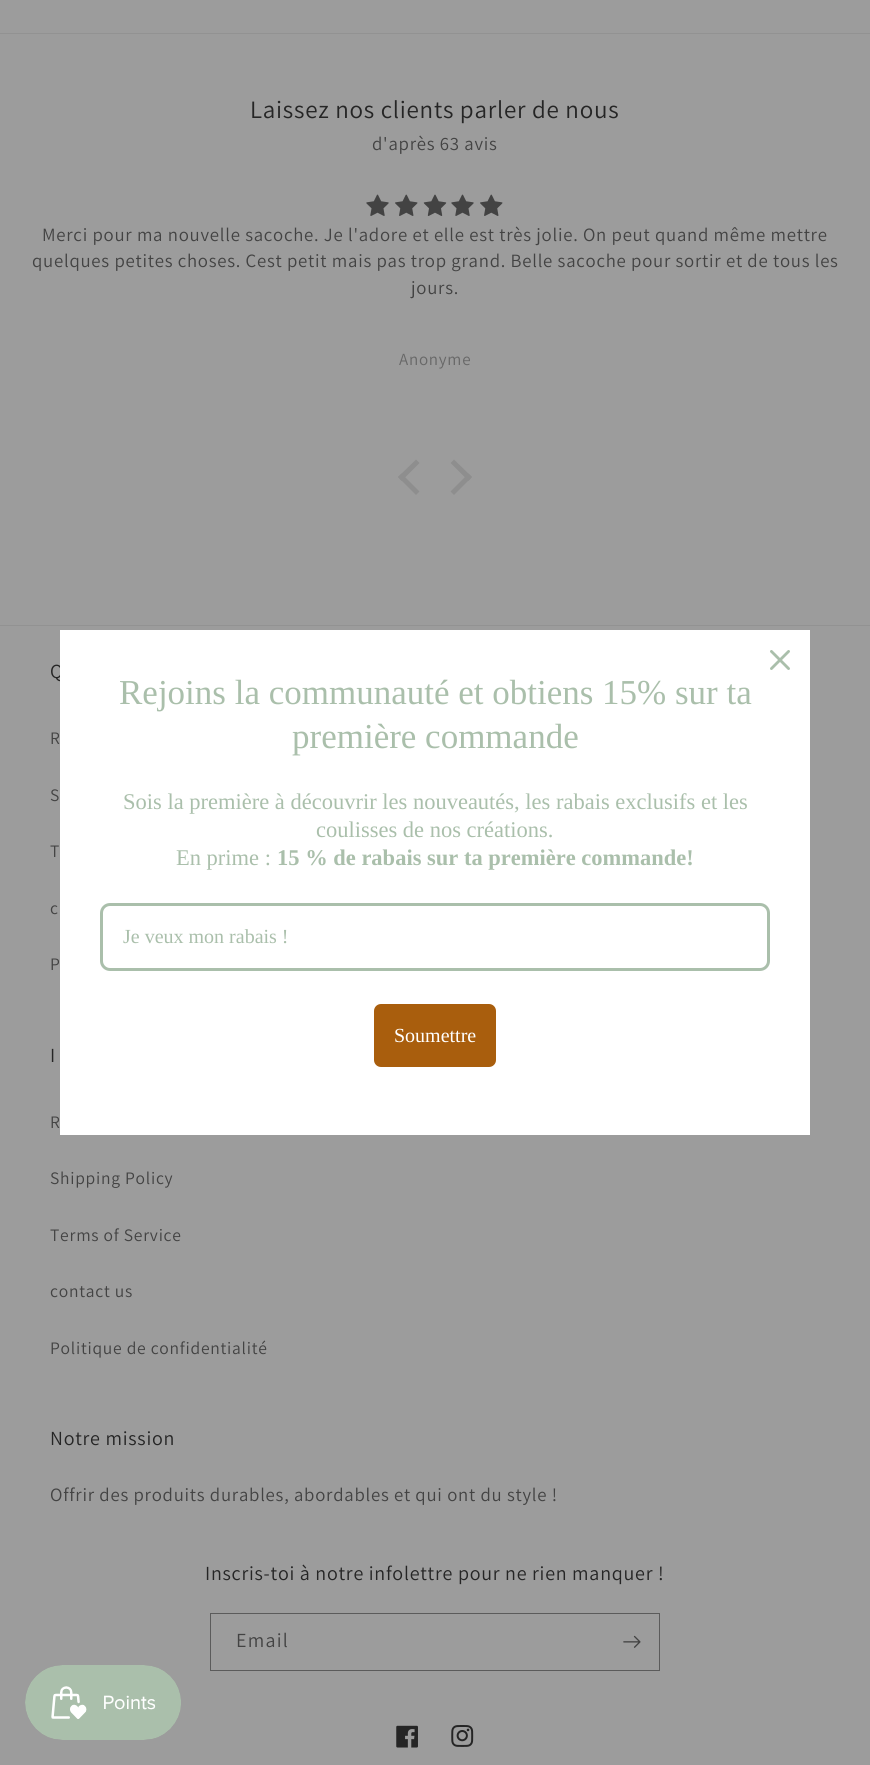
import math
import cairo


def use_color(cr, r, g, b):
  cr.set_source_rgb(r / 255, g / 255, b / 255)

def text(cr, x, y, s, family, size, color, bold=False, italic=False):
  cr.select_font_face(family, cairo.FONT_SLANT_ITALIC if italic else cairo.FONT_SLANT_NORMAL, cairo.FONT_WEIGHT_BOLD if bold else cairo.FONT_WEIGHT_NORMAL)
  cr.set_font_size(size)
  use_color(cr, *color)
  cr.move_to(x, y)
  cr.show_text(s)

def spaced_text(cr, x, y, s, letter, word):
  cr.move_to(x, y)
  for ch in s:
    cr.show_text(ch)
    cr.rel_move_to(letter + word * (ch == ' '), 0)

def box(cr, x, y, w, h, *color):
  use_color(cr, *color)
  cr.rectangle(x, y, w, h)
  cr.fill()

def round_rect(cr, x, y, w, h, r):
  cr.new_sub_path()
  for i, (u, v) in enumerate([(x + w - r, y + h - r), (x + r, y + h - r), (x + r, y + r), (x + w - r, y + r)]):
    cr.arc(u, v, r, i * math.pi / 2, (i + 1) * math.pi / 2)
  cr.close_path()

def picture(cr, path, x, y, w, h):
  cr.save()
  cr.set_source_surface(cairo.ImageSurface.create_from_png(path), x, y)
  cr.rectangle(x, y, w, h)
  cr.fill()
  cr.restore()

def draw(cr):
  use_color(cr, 156, 156, 156)
  cr.paint()
  box(cr, 0, 33, 870, 1, 146, 146, 146)
  picture(cr, "img_01.png", 366, 194, 23, 22)
  picture(cr, "img_02.png", 395, 194, 23, 22)
  picture(cr, "img_03.png", 423, 194, 24, 22)
  picture(cr, "img_01.png", 451, 194, 23, 22)
  picture(cr, "img_02.png", 480, 194, 23, 22)
  use_color(cr, 142, 142, 142)
  cr.new_path()
  cr.move_to(398, 477)
  cr.line_to(416, 459.5)
  cr.line_to(419.5, 463)
  cr.line_to(401.5, 481)
  cr.close_path()
  cr.fill()
  cr.new_path()
  cr.move_to(398, 477)
  cr.line_to(401.5, 473.5)
  cr.line_to(419.5, 491.5)
  cr.line_to(416, 495)
  cr.close_path()
  cr.fill()
  cr.new_path()
  cr.move_to(450.5, 463)
  cr.line_to(454, 459.5)
  cr.line_to(472, 477)
  cr.line_to(468.5, 481)
  cr.close_path()
  cr.fill()
  cr.new_path()
  cr.move_to(450.5, 491.5)
  cr.line_to(468.5, 473.5)
  cr.line_to(472, 477)
  cr.line_to(454, 495)
  cr.close_path()
  cr.fill()
  box(cr, 0, 625, 870, 1, 146, 146, 146)
  cr.rectangle(210.5, 1613.5, 449, 57)
  use_color(cr, 91, 91, 91)
  cr.set_line_width(1)
  cr.stroke()
  picture(cr, "img_04.png", 623, 1635, 18, 13)
  picture(cr, "img_05.png", 396, 1725, 22, 23)
  picture(cr, "img_06.png", 451, 1725, 23, 22)
  picture(cr, "img_08.png", 25, 1665, 156, 75)
  cr.select_font_face("Assistant")
  cr.set_font_size(25)
  use_color(cr, 37, 37, 37)
  spaced_text(cr, 250, 118, "Laissez nos clients parler de nous", 0.75, 0)
  cr.set_font_size(18.75)
  use_color(cr, 67, 67, 67)
  spaced_text(cr, 372, 150, "d'après 63 avis", 0.75, 0)
  spaced_text(cr, 42, 241, "Merci pour ma nouvelle sacoche. Je l'adore et elle est très jolie. On peut quand même mettre", 0.75, 0)
  spaced_text(cr, 32, 267, "quelques petites choses. Cest petit mais pas trop grand. Belle sacoche pour sortir et de tous les", 0.75, 0)
  spaced_text(cr, 411, 294, "jours.", 0.75, 0)
  cr.set_font_size(17)
  use_color(cr, 103, 103, 103)
  spaced_text(cr, 399, 365, "Anonyme", 0.75, 0)
  cr.set_font_size(20)
  use_color(cr, 37, 37, 37)
  spaced_text(cr, 50, 678, "Q", 0.75, 0)
  cr.set_font_size(17.5)
  use_color(cr, 67, 67, 67)
  spaced_text(cr, 50, 744, "R", 0.75, 0)
  spaced_text(cr, 50, 801, "S", 0.75, 0)
  spaced_text(cr, 50, 857, "T", 0.75, 0)
  spaced_text(cr, 50, 914, "c", 0.75, 0)
  spaced_text(cr, 50, 970, "P", 0.75, 0)
  cr.set_font_size(20)
  use_color(cr, 37, 37, 37)
  spaced_text(cr, 50, 1062, "I", 0.75, 0)
  cr.set_font_size(17.5)
  use_color(cr, 67, 67, 67)
  spaced_text(cr, 50, 1128, "R", 0.75, 0)
  spaced_text(cr, 50, 1184, "Shipping Policy", 0.75, 0)
  spaced_text(cr, 50, 1241, "Terms of Service", 0.75, 0)
  spaced_text(cr, 50, 1297, "contact us", 0.75, 0)
  spaced_text(cr, 50, 1354, "Politique de confidentialité", 0.75, 0)
  cr.set_font_size(20)
  use_color(cr, 37, 37, 37)
  spaced_text(cr, 50, 1445, "Notre mission", 0.75, 0)
  cr.set_font_size(18.75)
  use_color(cr, 67, 67, 67)
  spaced_text(cr, 50, 1501, "Offrir des produits durables, abordables et qui ont du style !", 0.75, 0)
  cr.set_font_size(20)
  use_color(cr, 37, 37, 37)
  spaced_text(cr, 205, 1580, "Inscris-toi à notre infolettre pour ne rien manquer !", 0.75, 0)
  use_color(cr, 67, 67, 67)
  spaced_text(cr, 236, 1647, "Email", 1.25, 0)
  box(cr, 60, 630, 750, 505, 255, 255, 255)
  picture(cr, "img_07.png", 770, 650, 20, 20)
  text(cr, 119, 704, "Rejoins la communauté et obtiens 15% sur ta", "Liberation Serif", 35, (170, 191, 171))
  text(cr, 292, 748, "première commande", "Liberation Serif", 35, (170, 191, 171))
  text(cr, 123, 809, "Sois la première à découvrir les nouveautés, les rabais exclusifs et les", "Liberation Serif", 22.5, (170, 191, 171))
  text(cr, 316, 837, "coulisses de nos créations.", "Liberation Serif", 22.5, (170, 191, 171))
  text(cr, 176, 865, "En prime :", "Liberation Serif", 22.5, (170, 191, 171))
  text(cr, 277, 865, "15 % de rabais sur ta première commande!", "Liberation Serif", 22.5, (170, 191, 171), bold=True)
  round_rect(cr, 101.5, 904.5, 667, 65, 8.5)
  cr.set_line_width(3)
  cr.stroke()
  text(cr, 123, 943, "Je veux mon rabais !", "Liberation Serif", 20, (170, 191, 171))
  use_color(cr, 169, 94, 13)
  round_rect(cr, 372.5, 1002.5, 125, 66, 8.5)
  cr.fill_preserve()
  use_color(cr, 255, 255, 255)
  cr.stroke()
  text(cr, 394, 1042, "Soumettre", "Liberation Serif", 20, (255, 255, 255))


surface = cairo.ImageSurface(cairo.FORMAT_RGB24, 870, 1765)
cr = cairo.Context(surface)
options = cairo.FontOptions()
options.set_hint_metrics(cairo.HINT_METRICS_OFF)
options.set_hint_style(cairo.HINT_STYLE_NONE)
cr.set_font_options(options)
cr.set_miter_limit(4)
draw(cr)
surface.write_to_png("out.png")
